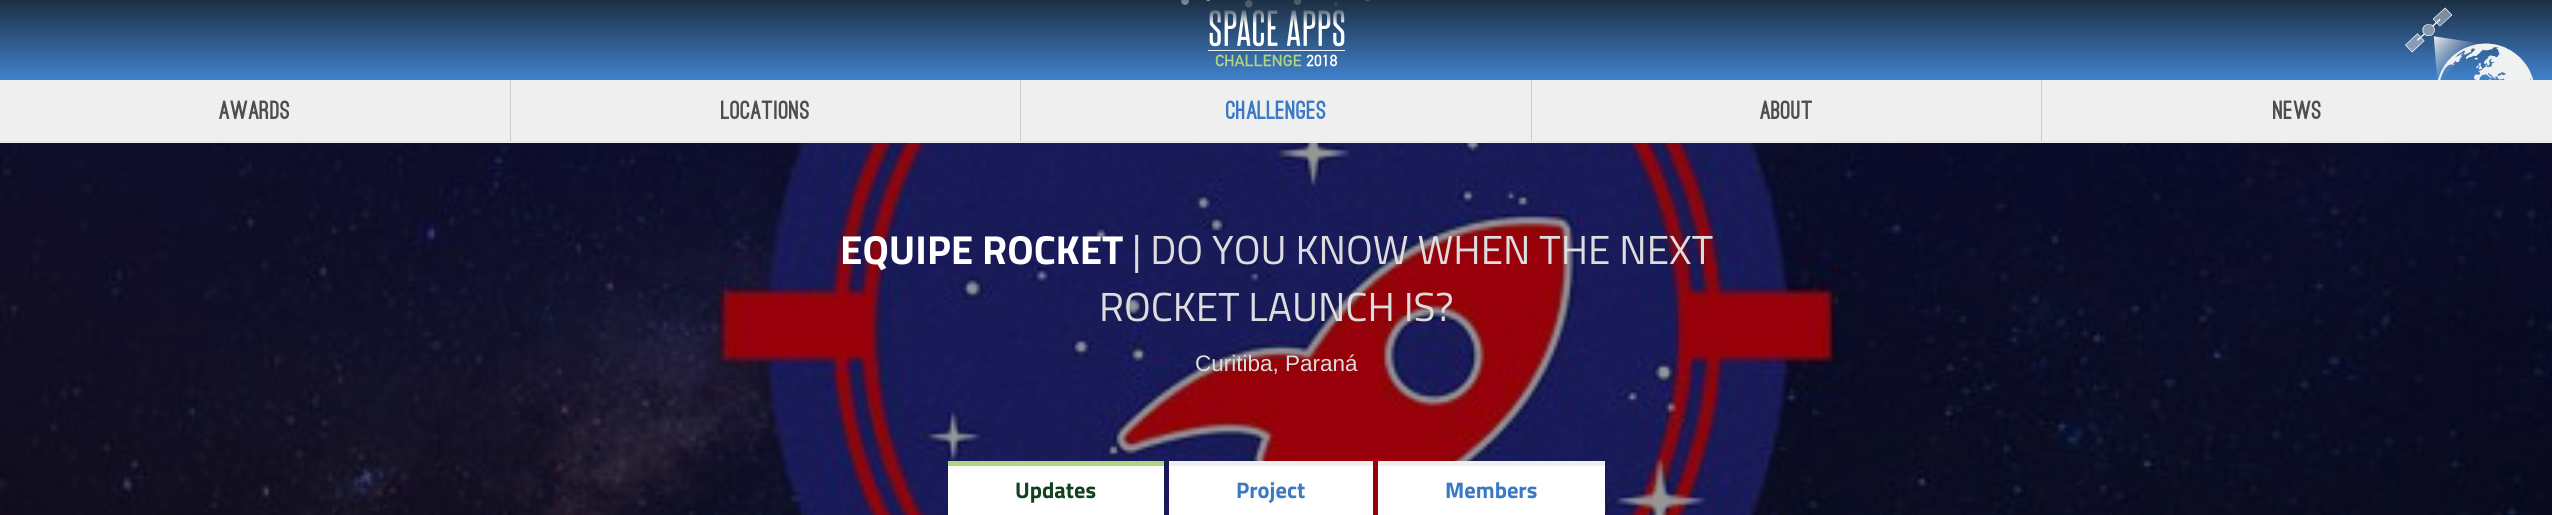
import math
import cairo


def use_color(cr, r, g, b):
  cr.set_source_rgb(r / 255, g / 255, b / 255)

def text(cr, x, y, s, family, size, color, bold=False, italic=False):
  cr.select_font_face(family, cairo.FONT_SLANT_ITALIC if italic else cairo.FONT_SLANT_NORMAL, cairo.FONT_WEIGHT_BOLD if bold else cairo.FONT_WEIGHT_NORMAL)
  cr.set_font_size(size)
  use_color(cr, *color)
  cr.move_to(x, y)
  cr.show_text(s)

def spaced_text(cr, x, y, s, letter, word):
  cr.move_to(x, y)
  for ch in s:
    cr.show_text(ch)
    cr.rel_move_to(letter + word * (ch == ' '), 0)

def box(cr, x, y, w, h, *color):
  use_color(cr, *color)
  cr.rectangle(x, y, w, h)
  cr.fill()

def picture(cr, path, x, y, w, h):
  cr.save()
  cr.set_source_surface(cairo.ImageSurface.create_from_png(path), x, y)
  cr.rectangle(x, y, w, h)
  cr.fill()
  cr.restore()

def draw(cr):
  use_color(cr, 255, 255, 255)
  cr.paint()
  box(cr, 0, 80, 2552, 63, 239, 239, 239)
  box(cr, 0, 141, 2552, 1, 227, 227, 227)
  gradient = cairo.LinearGradient(1276, 80, 1276, 0)
  gradient.add_color_stop_rgba(0, 0.251, 0.51, 0.804, 1)
  gradient.add_color_stop_rgba(1, 0.11, 0.184, 0.263, 1)
  cr.set_source(gradient)
  cr.rectangle(0, 0, 2552, 80)
  cr.fill()
  picture(cr, "img_01.png", 1181, 0, 189, 8)
  picture(cr, "img_02.png", 1208, 10, 137, 57)
  picture(cr, "img_03.png", 2405, 7, 129, 73)
  box(cr, 510, 80, 1, 61, 204, 204, 204)
  box(cr, 1020, 80, 1, 61, 204, 204, 204)
  box(cr, 1531, 80, 1, 61, 204, 204, 204)
  box(cr, 2041, 80, 1, 61, 204, 204, 204)
  picture(cr, "img_04.png", 0, 143, 2552, 372)
  box(cr, 948, 466, 216, 49, 255, 255, 255)
  box(cr, 948, 461, 216, 5, 176, 214, 129)
  box(cr, 1169, 466, 204, 49, 255, 255, 255)
  box(cr, 1169, 461, 204, 5, 239, 239, 239)
  box(cr, 1378, 466, 227, 49, 255, 255, 255)
  box(cr, 1378, 461, 227, 5, 239, 239, 239)
  cr.select_font_face("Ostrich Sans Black")
  cr.set_font_size(25)
  use_color(cr, 78, 78, 78)
  spaced_text(cr, 219, 119, "Awards", 0.25, 0)
  spaced_text(cr, 721, 119, "Locations", 0.25, 0)
  use_color(cr, 57, 121, 197)
  spaced_text(cr, 1226, 119, "Challenges", 0.25, 0)
  use_color(cr, 78, 78, 78)
  spaced_text(cr, 1760, 119, "About", 0.25, 0)
  spaced_text(cr, 2273, 119, "News", 0.25, 0)
  text(cr, 840, 264, "EQUIPE ROCKET", "Titillium Web", 40.5, (255, 255, 255), bold=True)
  text(cr, 1132, 264, "| DO YOU KNOW WHEN THE NEXT", "Titillium Web", 40.5, (221, 221, 221))
  text(cr, 1099, 321, "ROCKET LAUNCH IS?", "Titillium Web", 40.5, (221, 221, 221))
  text(cr, 1195, 371, "Curitiba, Paraná", "Liberation Sans", 22.5, (221, 221, 221))
  text(cr, 1015, 498, "Updates", "Titillium Web", 22.5, (19, 64, 32), bold=True)
  text(cr, 1236, 498, "Project", "Titillium Web", 22.5, (57, 121, 197), bold=True)
  text(cr, 1445, 498, "Members", "Titillium Web", 22.5, (57, 121, 197), bold=True)


surface = cairo.ImageSurface(cairo.FORMAT_RGB24, 2552, 515)
cr = cairo.Context(surface)
options = cairo.FontOptions()
options.set_hint_metrics(cairo.HINT_METRICS_OFF)
options.set_hint_style(cairo.HINT_STYLE_NONE)
cr.set_font_options(options)
cr.set_miter_limit(4)
draw(cr)
surface.write_to_png("out.png")
